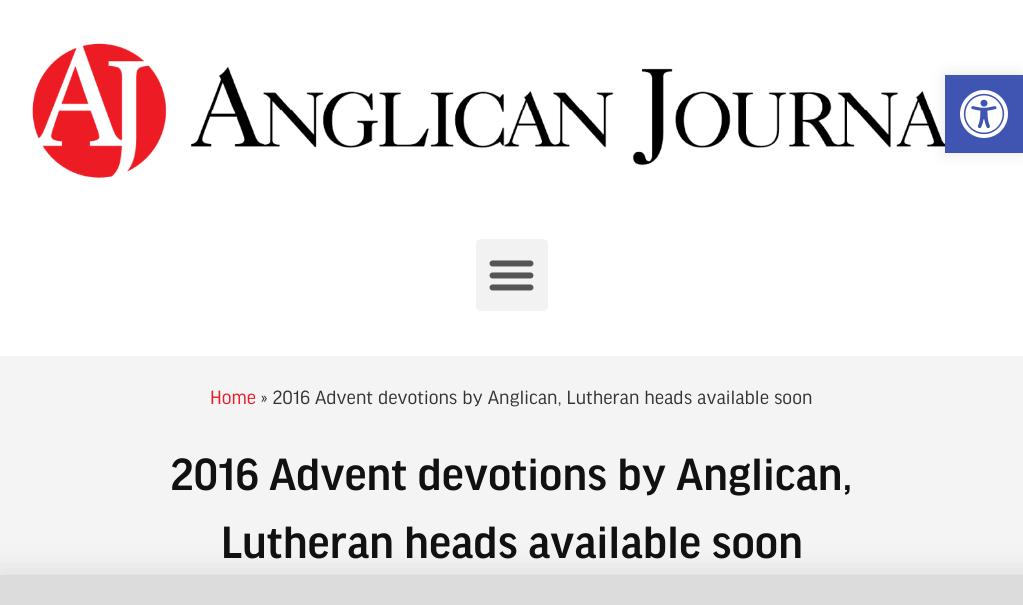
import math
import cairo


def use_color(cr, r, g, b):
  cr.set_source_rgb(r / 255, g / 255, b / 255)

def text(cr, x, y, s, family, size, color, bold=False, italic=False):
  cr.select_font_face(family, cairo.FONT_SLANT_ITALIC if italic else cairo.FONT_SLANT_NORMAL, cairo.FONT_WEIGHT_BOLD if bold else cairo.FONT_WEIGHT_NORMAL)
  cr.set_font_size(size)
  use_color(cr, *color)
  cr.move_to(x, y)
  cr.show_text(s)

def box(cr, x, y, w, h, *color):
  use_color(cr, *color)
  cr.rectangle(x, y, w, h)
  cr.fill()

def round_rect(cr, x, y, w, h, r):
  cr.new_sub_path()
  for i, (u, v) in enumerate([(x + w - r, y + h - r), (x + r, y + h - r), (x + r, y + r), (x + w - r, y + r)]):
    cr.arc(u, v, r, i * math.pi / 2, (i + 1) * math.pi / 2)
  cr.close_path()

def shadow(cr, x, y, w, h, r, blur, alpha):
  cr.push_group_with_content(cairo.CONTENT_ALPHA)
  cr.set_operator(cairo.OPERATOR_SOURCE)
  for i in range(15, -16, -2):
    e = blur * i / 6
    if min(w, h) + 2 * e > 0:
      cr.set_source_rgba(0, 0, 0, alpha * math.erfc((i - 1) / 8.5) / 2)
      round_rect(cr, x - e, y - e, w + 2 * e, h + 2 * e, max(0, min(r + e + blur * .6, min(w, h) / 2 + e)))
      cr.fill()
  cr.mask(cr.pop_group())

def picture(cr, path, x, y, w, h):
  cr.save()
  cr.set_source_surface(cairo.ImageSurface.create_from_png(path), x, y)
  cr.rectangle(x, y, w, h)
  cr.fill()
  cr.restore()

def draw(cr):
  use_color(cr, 255, 255, 255)
  cr.paint()
  picture(cr, "img_01.png", 32, 43, 913, 135)
  use_color(cr, 242, 242, 242)
  round_rect(cr, 476, 239, 72, 72, 5)
  cr.fill()
  picture(cr, "img_02.png", 489, 260, 45, 31)
  use_color(cr, 0, 0, 0)
  shadow(cr, 945, 75, 78, 78, 0, 7.5, 0.1)
  box(cr, 945, 75, 78, 78, 64, 84, 178)
  picture(cr, "img_03.png", 960, 90, 48, 48)
  box(cr, 0, 356, 1023, 219, 244, 244, 244)
  use_color(cr, 0, 0, 0)
  shadow(cr, -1, 582, 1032, 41, 0, 17, 0.2)
  box(cr, 0, 575, 1023, 30, 220, 220, 220)
  text(cr, 210, 404, "Home", "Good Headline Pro", 20.4, (237, 27, 36))
  text(cr, 261, 404, "» 2016 Advent devotions by Anglican, Lutheran heads available soon", "Good Headline Pro", 20.4, (51, 51, 51))
  text(cr, 170, 490, "2016 Advent devotions by Anglican,", "Good Headline Pro Medium", 48, (17, 17, 17))
  text(cr, 221, 558, "Lutheran heads available soon", "Good Headline Pro Medium", 48, (17, 17, 17))


surface = cairo.ImageSurface(cairo.FORMAT_RGB24, 1023, 605)
cr = cairo.Context(surface)
options = cairo.FontOptions()
options.set_hint_metrics(cairo.HINT_METRICS_OFF)
options.set_hint_style(cairo.HINT_STYLE_NONE)
cr.set_font_options(options)
cr.set_miter_limit(4)
draw(cr)
surface.write_to_png("out.png")
